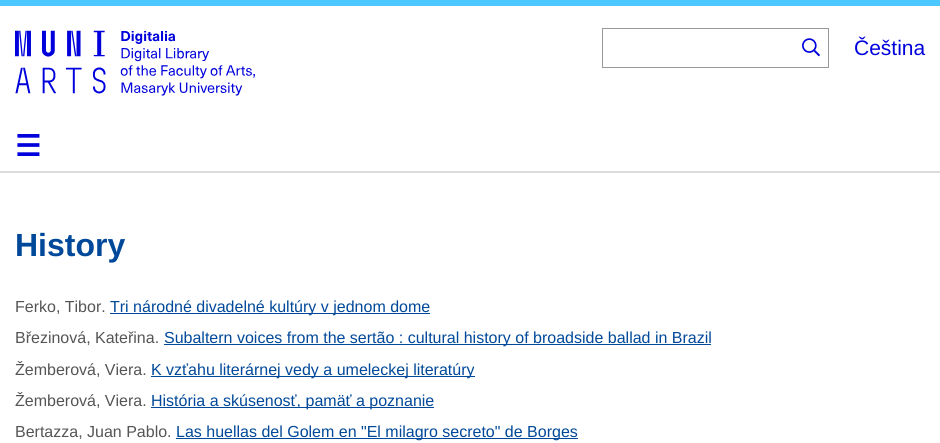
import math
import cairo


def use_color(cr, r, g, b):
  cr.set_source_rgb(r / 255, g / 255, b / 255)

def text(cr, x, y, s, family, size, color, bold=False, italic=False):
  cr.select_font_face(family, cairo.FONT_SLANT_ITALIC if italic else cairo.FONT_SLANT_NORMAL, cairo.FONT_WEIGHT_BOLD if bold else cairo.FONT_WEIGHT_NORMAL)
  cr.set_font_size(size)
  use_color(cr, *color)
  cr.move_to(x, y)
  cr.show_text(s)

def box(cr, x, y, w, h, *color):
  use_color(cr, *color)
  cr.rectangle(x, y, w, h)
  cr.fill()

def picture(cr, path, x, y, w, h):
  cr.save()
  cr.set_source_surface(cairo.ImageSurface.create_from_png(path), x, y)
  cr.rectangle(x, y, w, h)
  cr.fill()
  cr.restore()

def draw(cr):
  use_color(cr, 255, 255, 255)
  cr.paint()
  box(cr, 0, 0, 940, 6, 75, 200, 255)
  box(cr, 0, 171, 940, 2, 220, 220, 220)
  picture(cr, "img_01.png", 15, 30, 240, 66)
  box(cr, 602, 28, 227, 1, 153, 153, 153)
  box(cr, 602, 67, 192, 1, 153, 153, 153)
  box(cr, 602, 28, 1, 40, 153, 153, 153)
  picture(cr, "img_02.png", 802, 38, 18, 19)
  box(cr, 828, 28, 1, 40, 153, 153, 153)
  box(cr, 794, 67, 35, 1, 153, 153, 153)
  box(cr, 110, 313, 320, 1, 0, 72, 153)
  box(cr, 164, 344, 547, 1, 0, 72, 153)
  box(cr, 151, 376, 324, 1, 0, 72, 153)
  box(cr, 151, 407, 283, 1, 0, 72, 153)
  box(cr, 176, 438, 402, 1, 0, 72, 153)
  text(cr, 854, 55, "Čeština", "Liberation Sans", 21, (0, 0, 220))
  text(cr, 15, 156, "☰", "DejaVu Sans", 29, (0, 0, 220), bold=True)
  text(cr, 15, 256, "History", "Liberation Sans", 32, (0, 72, 153), bold=True)
  text(cr, 15, 312, "Ferko, Tibor.", "Liberation Sans", 16, (85, 85, 85))
  text(cr, 110, 312, "Tri národné divadelné kultúry v jednom dome", "Liberation Sans", 16, (0, 72, 153))
  text(cr, 15, 343, "Březinová, Kateřina.", "Liberation Sans", 16, (85, 85, 85))
  text(cr, 164, 343, "Subaltern voices from the sertão : cultural history of broadside ballad in Brazil", "Liberation Sans", 16, (0, 72, 153))
  text(cr, 15, 375, "Žemberová, Viera.", "Liberation Sans", 16, (85, 85, 85))
  text(cr, 151, 375, "K vzťahu literárnej vedy a umeleckej literatúry", "Liberation Sans", 16, (0, 72, 153))
  text(cr, 15, 406, "Žemberová, Viera.", "Liberation Sans", 16, (85, 85, 85))
  text(cr, 151, 406, "História a skúsenosť, pamäť a poznanie", "Liberation Sans", 16, (0, 72, 153))
  text(cr, 15, 437, "Bertazza, Juan Pablo.", "Liberation Sans", 16, (85, 85, 85))
  text(cr, 176, 437, "Las huellas del Golem en \"El milagro secreto\" de Borges", "Liberation Sans", 16, (0, 72, 153))


surface = cairo.ImageSurface(cairo.FORMAT_RGB24, 940, 443)
cr = cairo.Context(surface)
options = cairo.FontOptions()
options.set_hint_metrics(cairo.HINT_METRICS_OFF)
options.set_hint_style(cairo.HINT_STYLE_NONE)
cr.set_font_options(options)
cr.set_miter_limit(4)
draw(cr)
surface.write_to_png("out.png")
